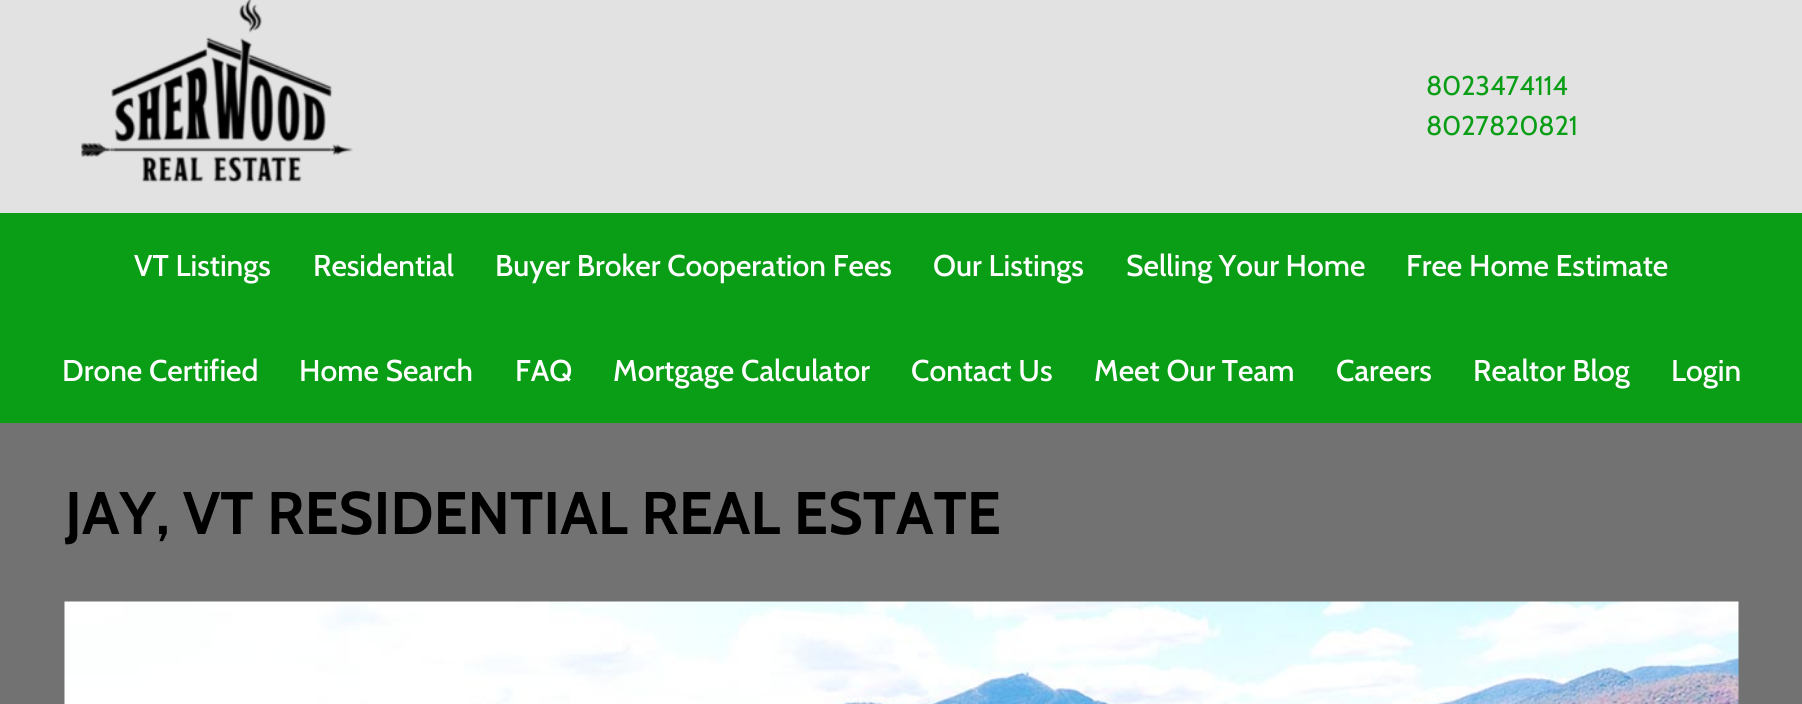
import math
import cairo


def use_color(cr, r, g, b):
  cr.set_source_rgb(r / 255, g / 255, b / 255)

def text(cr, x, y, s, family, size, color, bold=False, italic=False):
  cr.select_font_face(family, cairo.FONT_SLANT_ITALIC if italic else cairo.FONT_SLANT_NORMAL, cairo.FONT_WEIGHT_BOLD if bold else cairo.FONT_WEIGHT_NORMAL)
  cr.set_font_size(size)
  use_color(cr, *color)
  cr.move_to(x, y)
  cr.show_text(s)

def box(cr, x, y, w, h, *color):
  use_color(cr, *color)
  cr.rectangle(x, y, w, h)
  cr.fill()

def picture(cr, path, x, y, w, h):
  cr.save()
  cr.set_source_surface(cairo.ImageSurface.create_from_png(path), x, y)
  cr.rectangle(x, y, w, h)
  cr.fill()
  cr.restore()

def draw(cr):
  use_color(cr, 114, 114, 114)
  cr.paint()
  box(cr, 0, 0, 1802, 213, 226, 226, 226)
  picture(cr, "img_01.png", 81, 0, 272, 183)
  box(cr, 0, 213, 1802, 210, 9, 158, 21)
  picture(cr, "img_02.png", 64, 601, 1675, 103)
  text(cr, 1426, 95, "8023474114", "Cabin", 27, (9, 158, 21))
  text(cr, 1426, 135, "8027820821", "Cabin", 27, (9, 158, 21))
  text(cr, 134, 276, "VT Listings", "Cabin Medium", 30, (255, 255, 255))
  text(cr, 313, 276, "Residential", "Cabin Medium", 30, (255, 255, 255))
  text(cr, 495, 276, "Buyer Broker Cooperation Fees", "Cabin Medium", 30, (255, 255, 255))
  text(cr, 933, 276, "Our Listings", "Cabin Medium", 30, (255, 255, 255))
  text(cr, 1126, 276, "Selling Your Home", "Cabin Medium", 30, (255, 255, 255))
  text(cr, 1406, 276, "Free Home Estimate", "Cabin Medium", 30, (255, 255, 255))
  text(cr, 62, 381, "Drone Certified", "Cabin Medium", 30, (255, 255, 255))
  text(cr, 299, 381, "Home Search", "Cabin Medium", 30, (255, 255, 255))
  text(cr, 515, 381, "FAQ", "Cabin Medium", 30, (255, 255, 255))
  text(cr, 613, 381, "Mortgage Calculator", "Cabin Medium", 30, (255, 255, 255))
  text(cr, 911, 381, "Contact Us", "Cabin Medium", 30, (255, 255, 255))
  text(cr, 1094, 381, "Meet Our Team", "Cabin Medium", 30, (255, 255, 255))
  text(cr, 1336, 381, "Careers", "Cabin Medium", 30, (255, 255, 255))
  text(cr, 1473, 381, "Realtor Blog", "Cabin Medium", 30, (255, 255, 255))
  text(cr, 1671, 381, "Login", "Cabin Medium", 30, (255, 255, 255))
  text(cr, 65, 534, "JAY, VT RESIDENTIAL REAL ESTATE", "Cabin", 60, (0, 0, 0), bold=True)


surface = cairo.ImageSurface(cairo.FORMAT_RGB24, 1802, 704)
cr = cairo.Context(surface)
options = cairo.FontOptions()
options.set_hint_metrics(cairo.HINT_METRICS_OFF)
options.set_hint_style(cairo.HINT_STYLE_NONE)
cr.set_font_options(options)
cr.set_miter_limit(4)
draw(cr)
surface.write_to_png("out.png")
